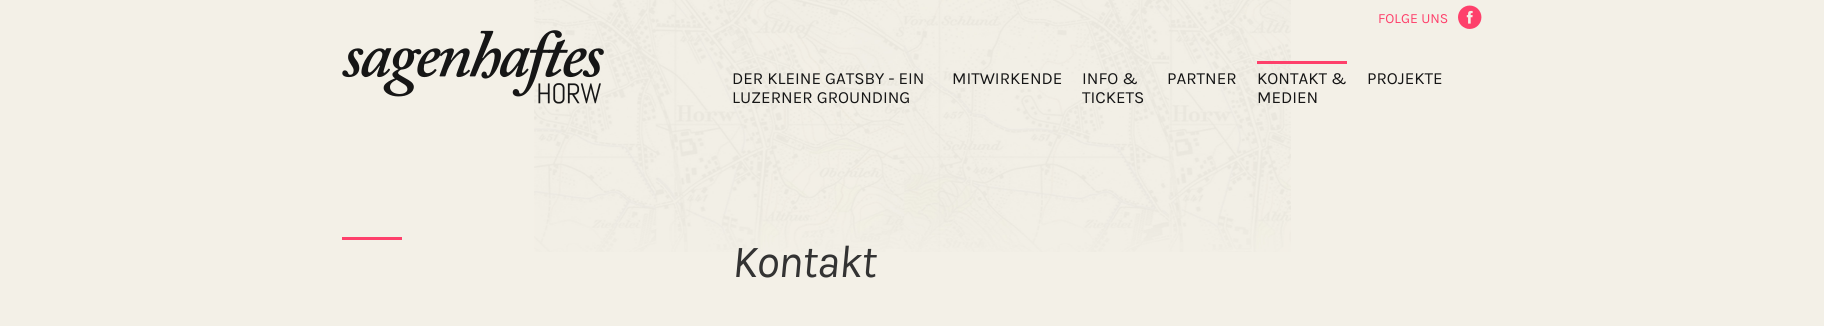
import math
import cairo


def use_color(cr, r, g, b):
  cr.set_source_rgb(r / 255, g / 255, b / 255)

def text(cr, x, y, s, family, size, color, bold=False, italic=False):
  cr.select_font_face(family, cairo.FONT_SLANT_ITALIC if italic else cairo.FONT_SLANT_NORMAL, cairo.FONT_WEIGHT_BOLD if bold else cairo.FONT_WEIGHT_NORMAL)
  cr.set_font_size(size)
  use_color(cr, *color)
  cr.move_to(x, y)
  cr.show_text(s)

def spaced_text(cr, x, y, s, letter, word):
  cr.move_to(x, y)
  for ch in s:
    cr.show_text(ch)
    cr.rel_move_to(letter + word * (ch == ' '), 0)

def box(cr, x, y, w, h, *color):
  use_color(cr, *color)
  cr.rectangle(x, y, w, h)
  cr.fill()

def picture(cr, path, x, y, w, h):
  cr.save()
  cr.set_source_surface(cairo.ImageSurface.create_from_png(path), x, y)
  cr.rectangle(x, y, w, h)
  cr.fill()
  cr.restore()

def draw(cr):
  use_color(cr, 243, 240, 231)
  cr.paint()
  picture(cr, "img_01.png", 534, 0, 757, 252)
  picture(cr, "img_02.png", 1458, 5, 24, 24)
  picture(cr, "img_03.png", 342, 30, 262, 74)
  box(cr, 1257, 61, 90, 3, 254, 64, 107)
  box(cr, 342, 237, 60, 3, 254, 64, 107)
  text(cr, 1378, 23, "FOLGE UNS", "Karla", 14, (254, 64, 107))
  text(cr, 732, 84, "DER KLEINE GATSBY - EIN", "Karla", 17, (22, 22, 22))
  text(cr, 732, 103, "LUZERNER GROUNDING", "Karla", 17, (22, 22, 22))
  text(cr, 952, 84, "MITWIRKENDE", "Karla", 17, (22, 22, 22))
  text(cr, 1082, 84, "INFO &", "Karla", 17, (22, 22, 22))
  text(cr, 1082, 103, "TICKETS", "Karla", 17, (22, 22, 22))
  text(cr, 1167, 84, "PARTNER", "Karla", 17, (22, 22, 22))
  text(cr, 1257, 84, "KONTAKT &", "Karla", 17, (22, 22, 22))
  text(cr, 1257, 103, "MEDIEN", "Karla", 17, (22, 22, 22))
  text(cr, 1367, 84, "PROJEKTE", "Karla", 17, (22, 22, 22))
  cr.select_font_face("Karla", cairo.FONT_SLANT_ITALIC)
  cr.set_font_size(46)
  use_color(cr, 51, 51, 51)
  spaced_text(cr, 732, 277, "Kontakt", -1, 0)


surface = cairo.ImageSurface(cairo.FORMAT_RGB24, 1824, 326)
cr = cairo.Context(surface)
options = cairo.FontOptions()
options.set_hint_metrics(cairo.HINT_METRICS_OFF)
options.set_hint_style(cairo.HINT_STYLE_NONE)
cr.set_font_options(options)
cr.set_miter_limit(4)
draw(cr)
surface.write_to_png("out.png")
